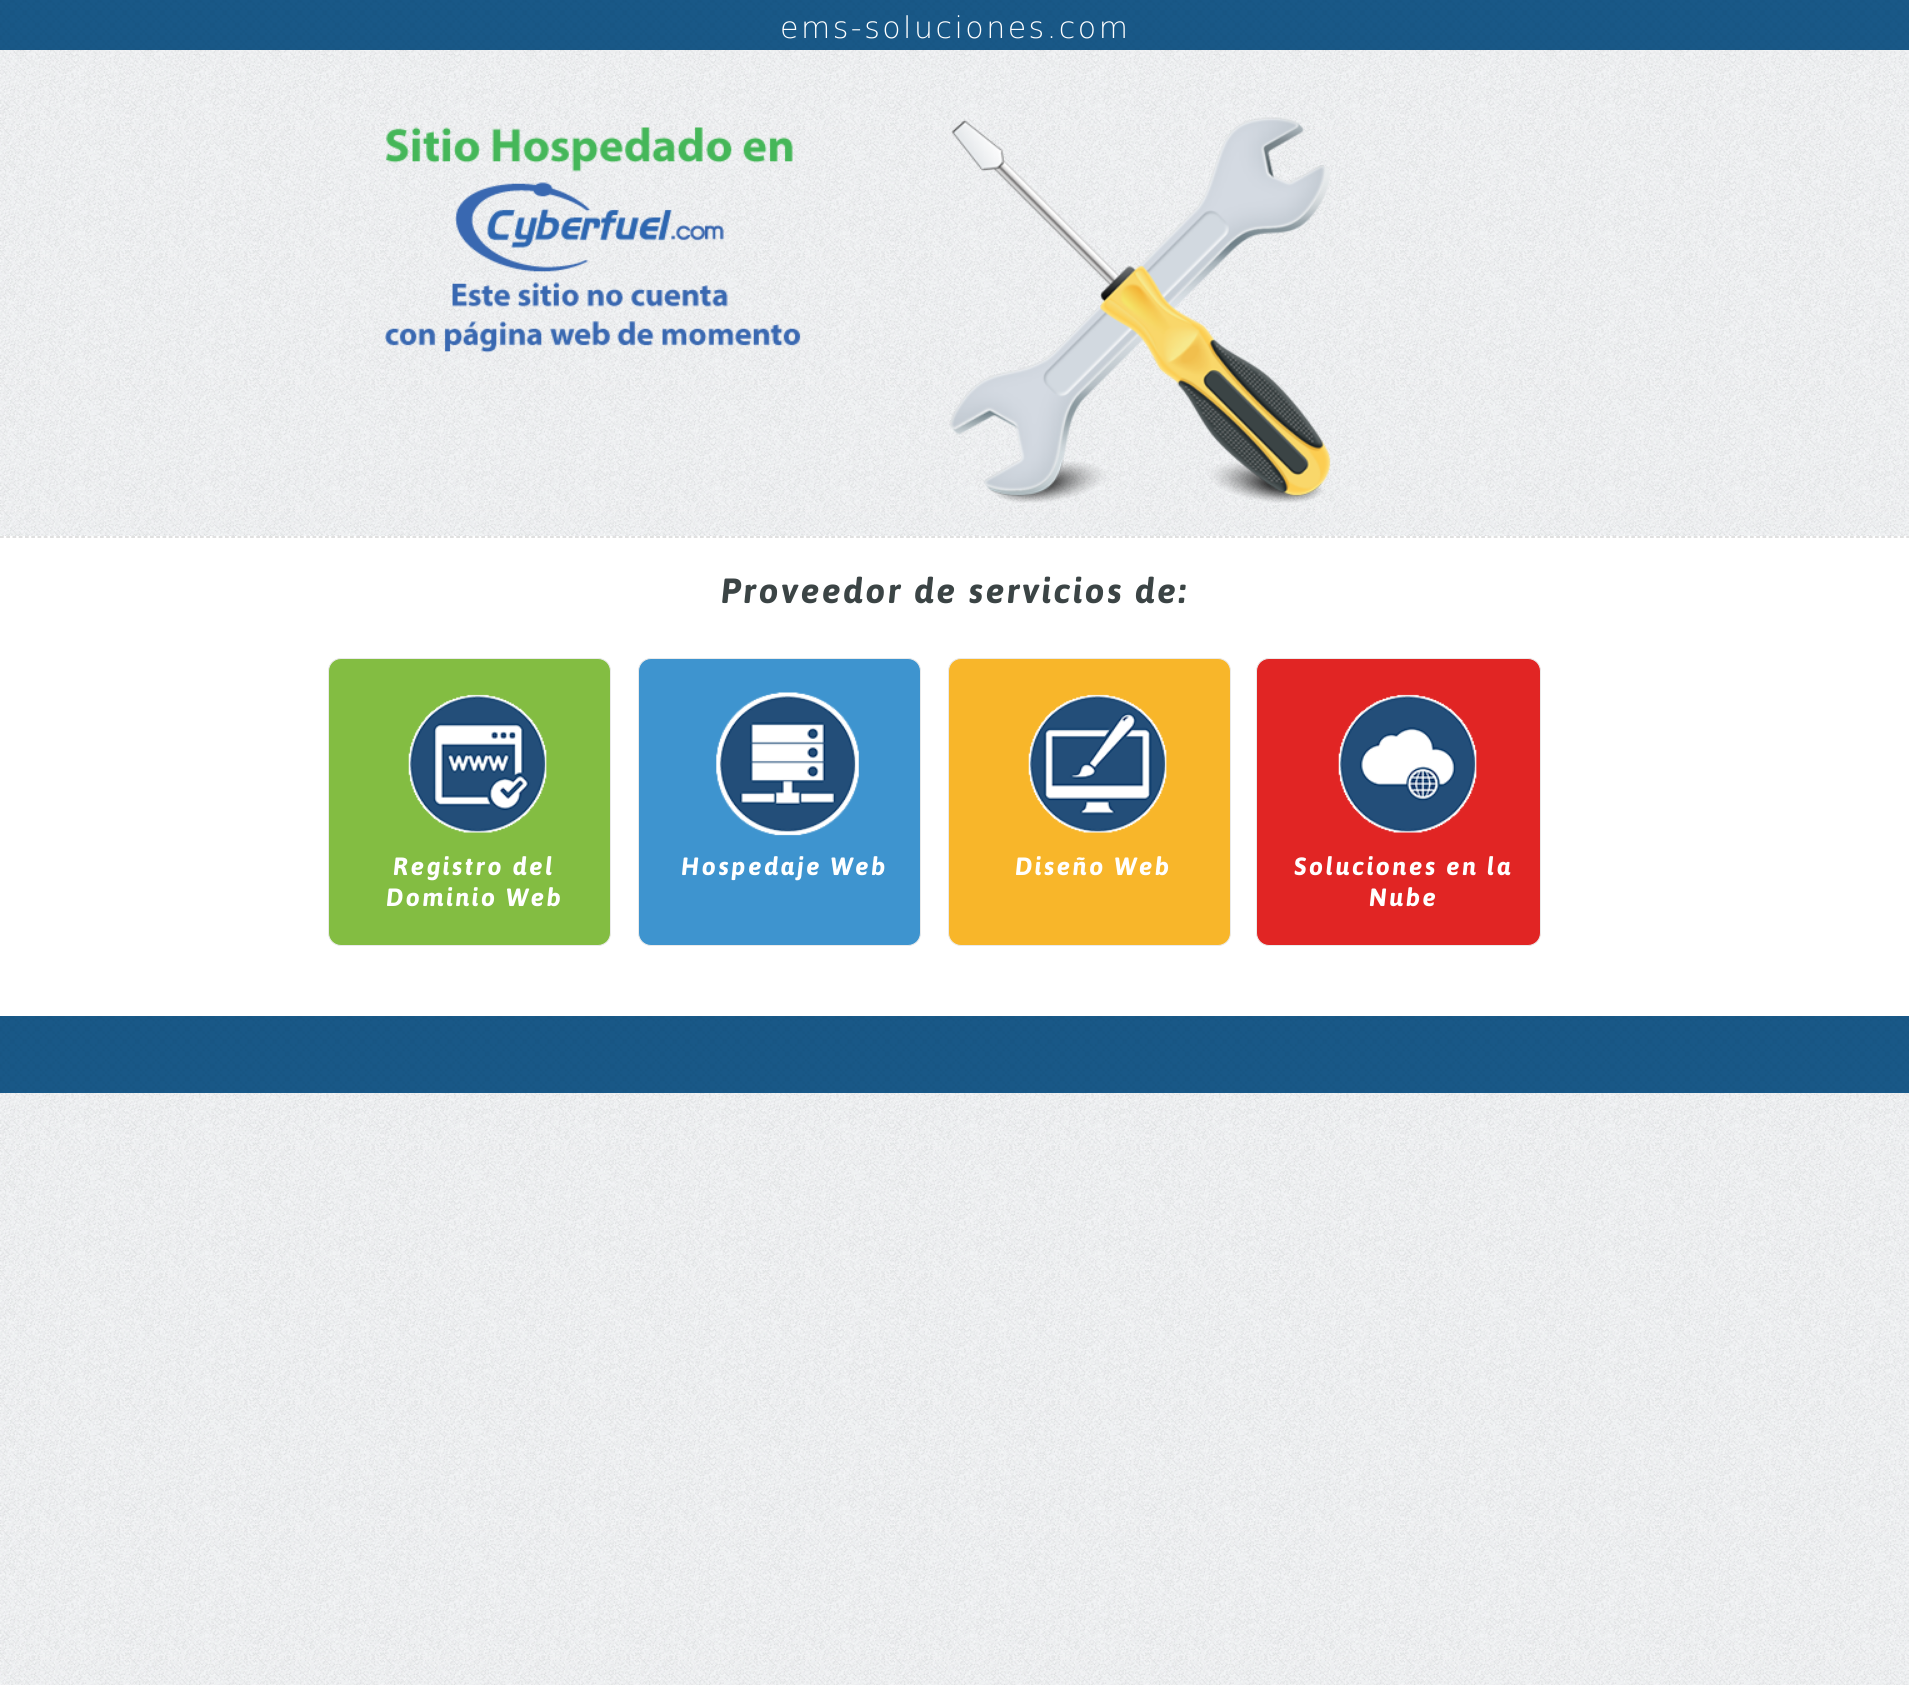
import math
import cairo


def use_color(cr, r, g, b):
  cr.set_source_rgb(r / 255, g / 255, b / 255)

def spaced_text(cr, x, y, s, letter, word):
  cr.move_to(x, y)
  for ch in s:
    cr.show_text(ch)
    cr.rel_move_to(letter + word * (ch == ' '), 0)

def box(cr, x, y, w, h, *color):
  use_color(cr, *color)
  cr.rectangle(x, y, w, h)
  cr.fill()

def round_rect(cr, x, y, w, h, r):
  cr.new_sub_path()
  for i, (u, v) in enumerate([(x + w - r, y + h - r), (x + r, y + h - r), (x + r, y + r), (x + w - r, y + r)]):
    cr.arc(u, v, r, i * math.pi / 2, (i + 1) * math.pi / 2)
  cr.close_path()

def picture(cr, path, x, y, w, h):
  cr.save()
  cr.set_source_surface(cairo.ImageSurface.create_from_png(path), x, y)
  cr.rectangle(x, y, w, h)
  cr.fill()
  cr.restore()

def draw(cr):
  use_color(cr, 255, 255, 255)
  cr.paint()
  picture(cr, "img_01.png", 0, 50, 1909, 1635)
  box(cr, 0, 0, 1909, 50, 25, 90, 138)
  picture(cr, "img_02.png", 0, 0, 1909, 50)
  picture(cr, "img_03.png", 384, 127, 417, 226)
  picture(cr, "img_04.png", 950, 117, 381, 386)
  box(cr, 0, 536, 1909, 480, 255, 255, 255)
  cr.new_path()
  cr.move_to(0, 537)
  cr.line_to(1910, 537)
  use_color(cr, 204, 204, 204)
  cr.set_line_width(1.2)
  cr.set_dash([3.75, 2.5])
  cr.stroke()
  use_color(cr, 131, 189, 66)
  round_rect(cr, 328.5, 658.5, 282, 287, 12.5)
  cr.fill_preserve()
  use_color(cr, 234, 234, 234)
  cr.set_line_width(1)
  cr.set_dash([])
  cr.stroke()
  picture(cr, "img_05.png", 408, 694, 139, 139)
  use_color(cr, 62, 148, 207)
  round_rect(cr, 638.5, 658.5, 282, 287, 12.5)
  cr.fill_preserve()
  use_color(cr, 234, 234, 234)
  cr.stroke()
  picture(cr, "img_06.png", 716, 692, 143, 144)
  use_color(cr, 248, 182, 42)
  round_rect(cr, 948.5, 658.5, 282, 287, 12.5)
  cr.fill_preserve()
  use_color(cr, 234, 234, 234)
  cr.stroke()
  picture(cr, "img_07.png", 1028, 694, 139, 139)
  use_color(cr, 225, 37, 36)
  round_rect(cr, 1256.5, 658.5, 284, 287, 12.5)
  cr.fill_preserve()
  use_color(cr, 234, 234, 234)
  cr.stroke()
  picture(cr, "img_08.png", 1338, 694, 139, 139)
  box(cr, 0, 1016, 1909, 77, 25, 90, 138)
  picture(cr, "img_09.png", 0, 1016, 1909, 76)
  cr.select_font_face("DejaVu Sans ExtraLight")
  cr.set_font_size(30)
  use_color(cr, 255, 255, 255)
  spaced_text(cr, 780, 38, "ems-soluciones.com", 2.5, 0)
  cr.select_font_face("Asap", cairo.FONT_SLANT_ITALIC, cairo.FONT_WEIGHT_BOLD)
  cr.set_font_size(35)
  use_color(cr, 59, 68, 69)
  spaced_text(cr, 721, 603, "Proveedor de servicios de:", 2.5, 0)
  cr.set_font_size(25)
  use_color(cr, 255, 255, 255)
  spaced_text(cr, 393, 875, "Registro del", 2.5, 0)
  spaced_text(cr, 386, 906, "Dominio Web", 2.5, 0)
  spaced_text(cr, 681, 875, "Hospedaje Web", 2.5, 0)
  spaced_text(cr, 1015, 875, "Diseño Web", 2.5, 0)
  spaced_text(cr, 1294, 875, "Soluciones en la", 2.5, 0)
  spaced_text(cr, 1369, 906, "Nube", 2.5, 0)


surface = cairo.ImageSurface(cairo.FORMAT_RGB24, 1909, 1685)
cr = cairo.Context(surface)
options = cairo.FontOptions()
options.set_hint_metrics(cairo.HINT_METRICS_OFF)
options.set_hint_style(cairo.HINT_STYLE_NONE)
cr.set_font_options(options)
cr.set_miter_limit(4)
draw(cr)
surface.write_to_png("out.png")
